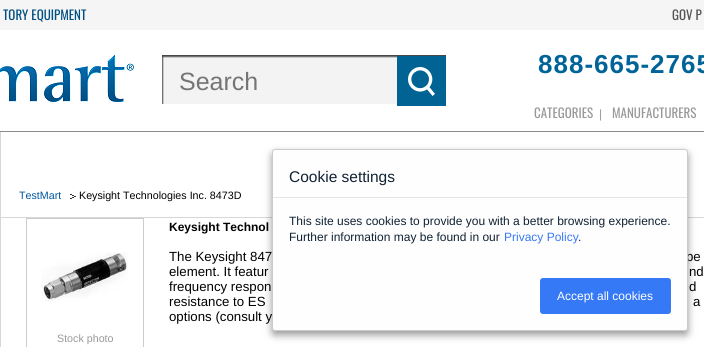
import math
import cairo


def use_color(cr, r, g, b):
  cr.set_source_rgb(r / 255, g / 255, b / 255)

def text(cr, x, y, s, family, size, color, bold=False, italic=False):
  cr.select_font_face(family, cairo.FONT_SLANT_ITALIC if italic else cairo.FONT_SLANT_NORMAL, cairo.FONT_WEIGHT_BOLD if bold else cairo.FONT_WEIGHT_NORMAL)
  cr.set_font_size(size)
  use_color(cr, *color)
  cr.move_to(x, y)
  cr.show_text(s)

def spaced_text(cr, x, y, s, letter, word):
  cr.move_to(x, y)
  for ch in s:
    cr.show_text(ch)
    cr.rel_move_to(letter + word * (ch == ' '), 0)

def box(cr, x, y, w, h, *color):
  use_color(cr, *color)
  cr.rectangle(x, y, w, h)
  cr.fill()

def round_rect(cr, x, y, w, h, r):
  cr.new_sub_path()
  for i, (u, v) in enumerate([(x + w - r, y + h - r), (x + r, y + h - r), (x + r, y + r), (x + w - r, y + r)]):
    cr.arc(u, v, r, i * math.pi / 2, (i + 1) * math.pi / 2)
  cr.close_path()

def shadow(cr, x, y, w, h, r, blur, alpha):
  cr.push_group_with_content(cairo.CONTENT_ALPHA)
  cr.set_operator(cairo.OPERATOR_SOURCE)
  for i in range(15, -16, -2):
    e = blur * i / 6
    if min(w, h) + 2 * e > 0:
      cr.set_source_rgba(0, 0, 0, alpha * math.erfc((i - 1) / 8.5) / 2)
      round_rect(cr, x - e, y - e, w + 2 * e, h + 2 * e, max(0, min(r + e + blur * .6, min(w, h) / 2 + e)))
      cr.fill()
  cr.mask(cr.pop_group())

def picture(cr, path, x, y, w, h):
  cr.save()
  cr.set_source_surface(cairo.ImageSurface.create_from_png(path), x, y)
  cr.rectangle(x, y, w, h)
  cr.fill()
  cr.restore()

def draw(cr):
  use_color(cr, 255, 255, 255)
  cr.paint()
  cr.rectangle(0.5, 109.5, 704, 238)
  use_color(cr, 215, 215, 215)
  cr.set_line_width(1)
  cr.stroke()
  picture(cr, "img_01.png", 0, 0, 704, 132)
  picture(cr, "img_02.png", 0, 55, 134, 47)
  picture(cr, "img_03.png", 162, 55, 235, 49)
  picture(cr, "img_04.png", 397, 55, 49, 51)
  box(cr, 1, 217, 703, 1, 215, 215, 215)
  picture(cr, "img_05.png", 70, 194, 6, 5)
  cr.rectangle(26.5, 218.5, 117, 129)
  use_color(cr, 204, 204, 204)
  cr.stroke()
  picture(cr, "img_06.png", 41, 252, 87, 50)
  use_color(cr, 0, 0, 0)
  shadow(cr, 272, 153, 416, 182, 3, 4, 0.4)
  text(cr, 3, 20, "TORY EQUIPMENT", "Oswald", 13, (0, 80, 131))
  text(cr, 672, 20, "GOV P", "Oswald", 13, (84, 84, 84))
  text(cr, 179, 90, "Search", "Liberation Sans", 25, (117, 117, 117))
  cr.select_font_face("Liberation Sans", cairo.FONT_SLANT_NORMAL, cairo.FONT_WEIGHT_BOLD)
  cr.set_font_size(26)
  use_color(cr, 0, 100, 153)
  spaced_text(cr, 538, 73, "888-665-2765", 1, 0)
  text(cr, 534, 118, "CATEGORIES", "Oswald", 13, (153, 153, 153))
  text(cr, 599, 118, "|", "Liberation Sans", 12, (153, 153, 153))
  text(cr, 612, 118, "MANUFACTURERS", "Oswald", 13, (153, 153, 153))
  text(cr, 19, 199, "TestMart", "Liberation Sans", 10.7, (0, 84, 158))
  text(cr, 79, 199, "Keysight Technologies Inc. 8473D", "Liberation Sans", 10.7, (0, 0, 0))
  text(cr, 169, 231, "Keysight Technol", "Liberation Sans", 12, (0, 0, 0), bold=True)
  text(cr, 169, 261, "The Keysight 847", "Liberation Sans", 13.25, (0, 0, 0))
  text(cr, 686, 261, "pe", "Liberation Sans", 13.25, (0, 0, 0))
  text(cr, 169, 276, "element. It featur", "Liberation Sans", 13.25, (0, 0, 0))
  text(cr, 689, 276, "nd", "Liberation Sans", 13.25, (0, 0, 0))
  text(cr, 169, 291, "frequency respon", "Liberation Sans", 13.25, (0, 0, 0))
  text(cr, 689, 291, "d", "Liberation Sans", 13.25, (0, 0, 0))
  text(cr, 169, 306, "resistance to ES", "Liberation Sans", 13.25, (0, 0, 0))
  text(cr, 693, 306, "a", "Liberation Sans", 13.25, (0, 0, 0))
  text(cr, 169, 321, "options (consult y", "Liberation Sans", 13.25, (0, 0, 0))
  text(cr, 57, 342, "Stock photo", "Liberation Sans", 10.7, (153, 153, 153))
  use_color(cr, 254, 254, 254)
  round_rect(cr, 272, 149, 416, 182, 3)
  cr.fill()
  round_rect(cr, 272.5, 149.5, 415, 181, 2.5)
  cr.set_source_rgba(0, 0, 0, 0.2)
  cr.stroke()
  box(cr, 273, 197, 414, 1, 229, 229, 229)
  text(cr, 289, 182, "Cookie settings", "Liberation Sans", 15.5, (17, 34, 51))
  text(cr, 289, 225, "This site uses cookies to provide you with a better browsing experience.", "Liberation Sans", 12, (17, 34, 51))
  text(cr, 289, 241, "Further information may be found in our", "Liberation Sans", 12, (17, 34, 51))
  text(cr, 504, 241, "Privacy Policy", "Liberation Sans", 12, (53, 121, 246))
  text(cr, 578, 241, ".", "Liberation Sans", 12, (17, 34, 51))
  use_color(cr, 53, 121, 246)
  round_rect(cr, 540, 278, 131, 36, 3)
  cr.fill()
  text(cr, 557, 300, "Accept all cookies", "Liberation Sans", 12, (255, 255, 255))


surface = cairo.ImageSurface(cairo.FORMAT_RGB24, 704, 347)
cr = cairo.Context(surface)
options = cairo.FontOptions()
options.set_hint_metrics(cairo.HINT_METRICS_OFF)
options.set_hint_style(cairo.HINT_STYLE_NONE)
cr.set_font_options(options)
cr.set_miter_limit(4)
draw(cr)
surface.write_to_png("out.png")
